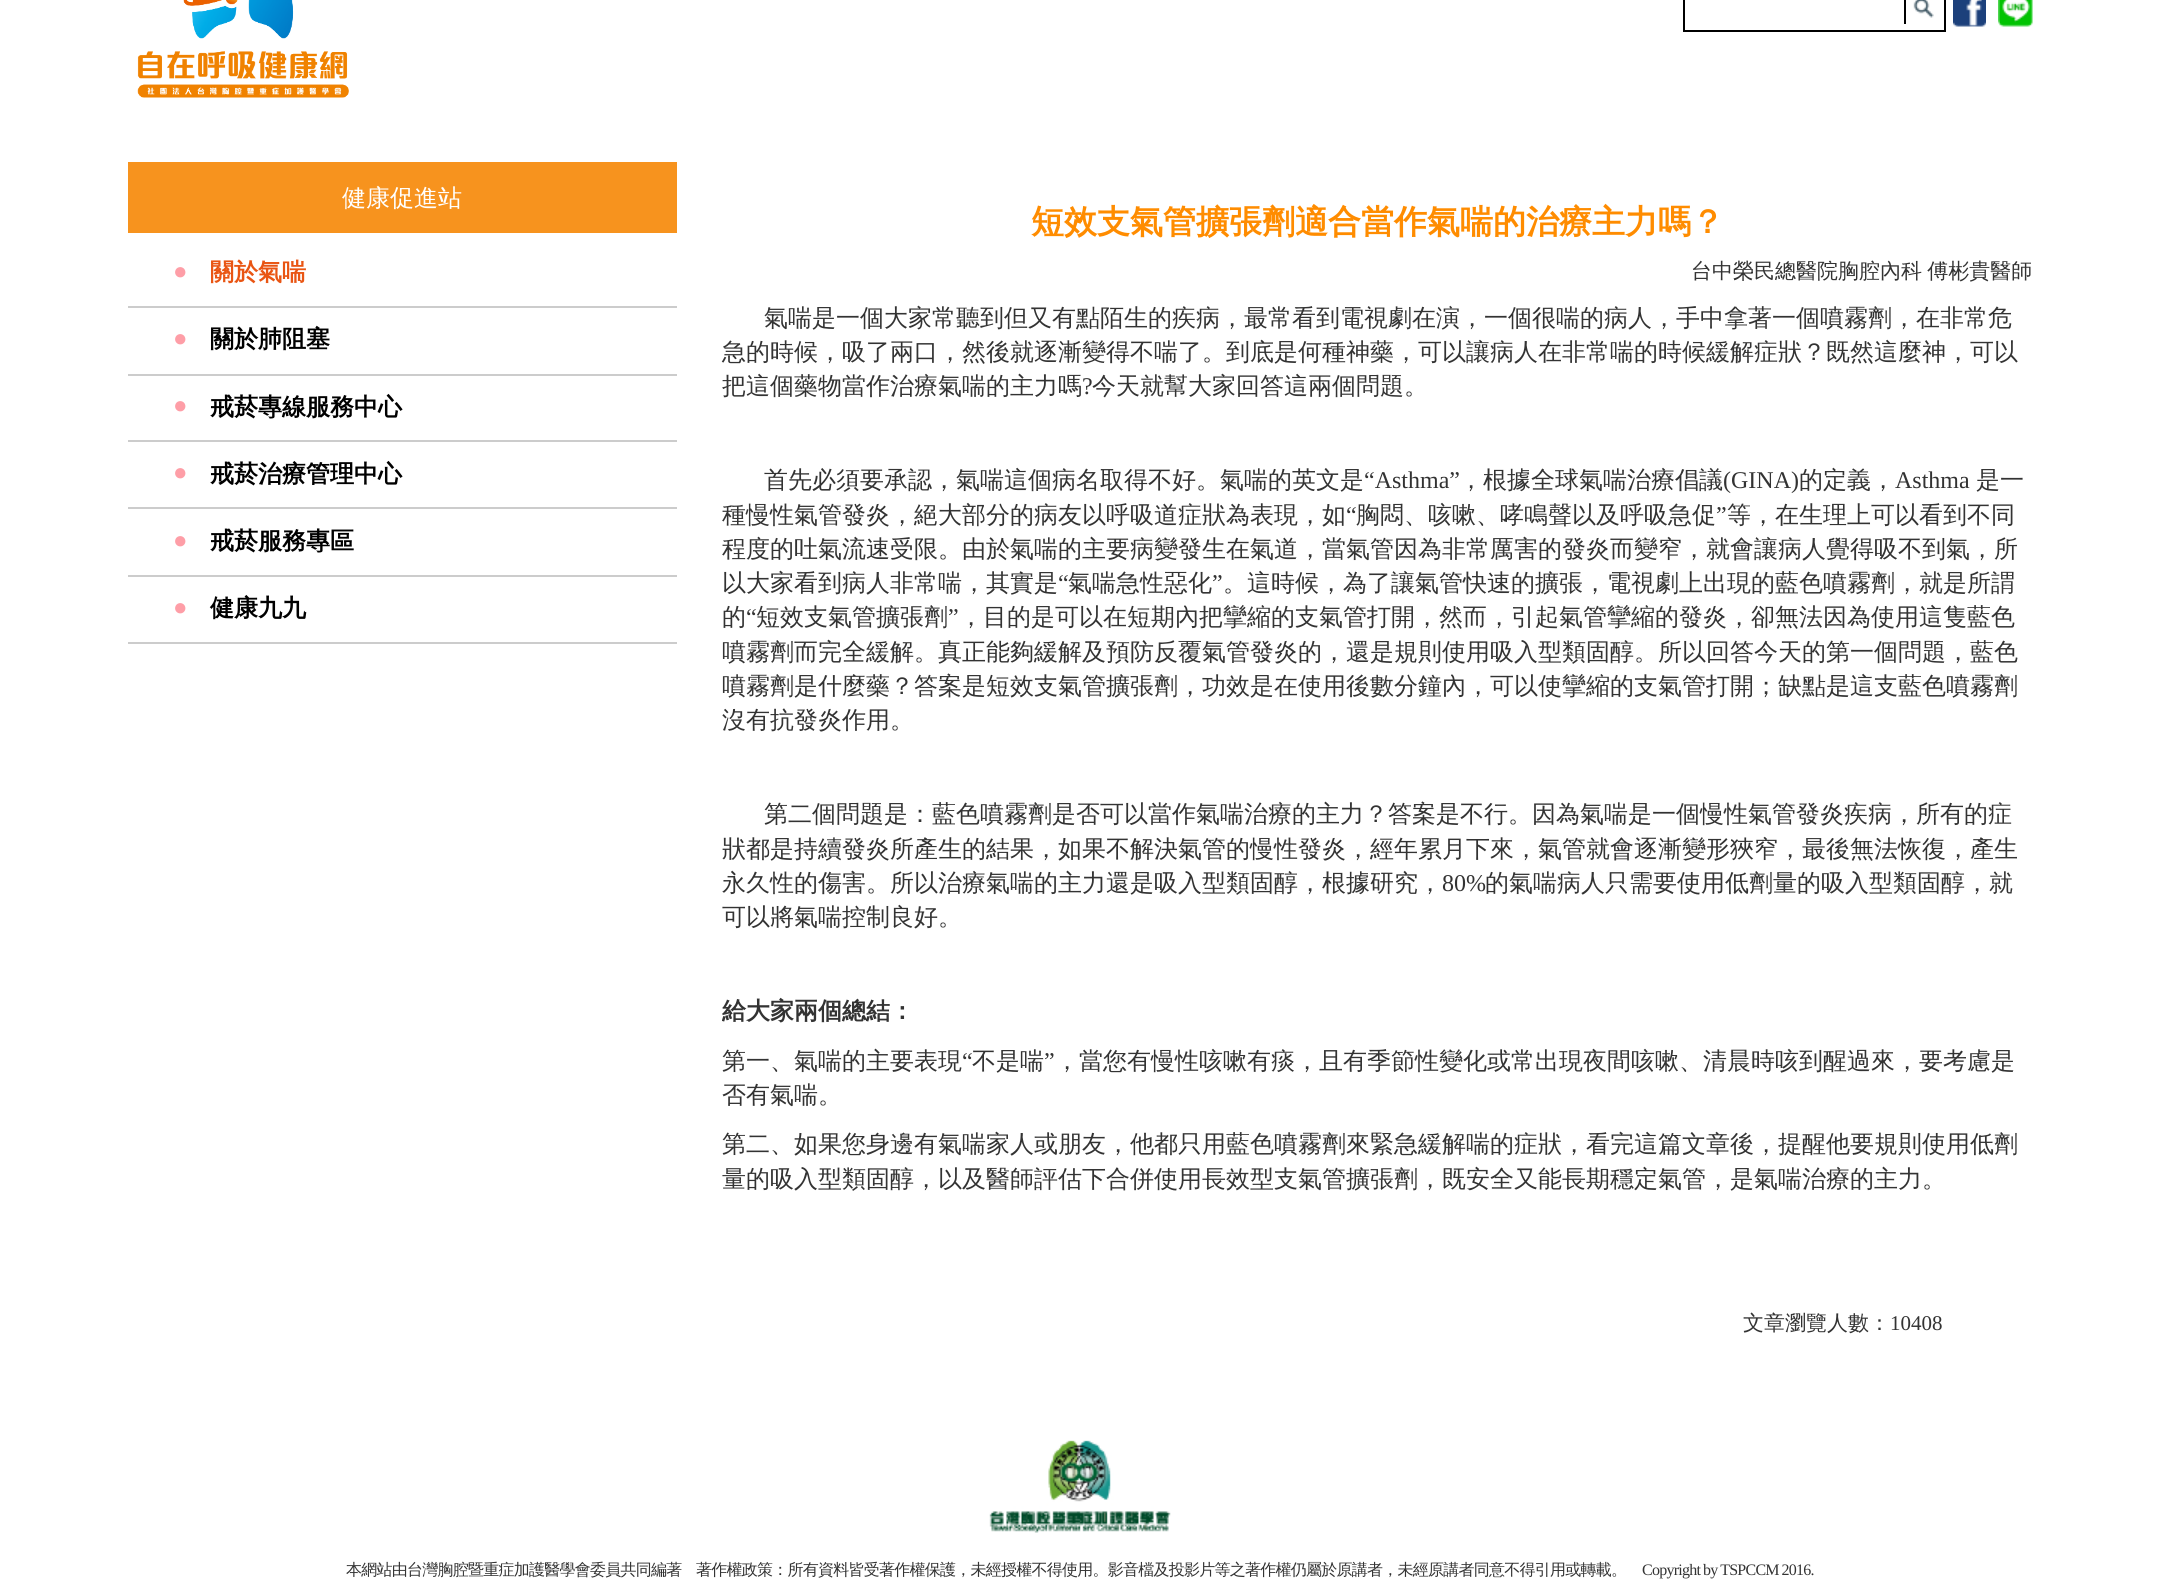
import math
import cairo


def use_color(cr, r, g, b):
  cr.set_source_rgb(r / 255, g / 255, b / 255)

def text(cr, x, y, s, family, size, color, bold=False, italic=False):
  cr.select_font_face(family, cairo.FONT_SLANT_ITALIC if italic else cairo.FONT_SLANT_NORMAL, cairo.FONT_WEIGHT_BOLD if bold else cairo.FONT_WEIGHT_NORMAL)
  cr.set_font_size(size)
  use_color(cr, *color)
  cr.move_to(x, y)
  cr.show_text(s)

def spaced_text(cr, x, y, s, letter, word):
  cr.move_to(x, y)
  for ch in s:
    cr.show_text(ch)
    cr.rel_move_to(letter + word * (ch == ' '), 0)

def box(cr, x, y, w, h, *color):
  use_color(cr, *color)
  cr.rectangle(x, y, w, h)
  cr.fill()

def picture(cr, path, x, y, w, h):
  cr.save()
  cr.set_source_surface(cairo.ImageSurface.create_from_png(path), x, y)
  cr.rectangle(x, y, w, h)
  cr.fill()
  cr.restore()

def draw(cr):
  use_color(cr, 255, 255, 255)
  cr.paint()
  picture(cr, "img_01.png", 137, 0, 212, 98)
  cr.rectangle(1684, -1, 261, 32)
  use_color(cr, 0, 0, 0)
  cr.stroke()
  picture(cr, "img_02.png", 1913, 0, 21, 18)
  box(cr, 1904, 0, 2, 24, 0, 0, 0)
  picture(cr, "img_03.png", 1953, 0, 33, 27)
  picture(cr, "img_04.png", 1998, 0, 35, 27)
  box(cr, 128, 162, 549, 71, 247, 147, 30)
  box(cr, 128, 306, 549, 2, 204, 204, 204)
  box(cr, 128, 374, 549, 2, 204, 204, 204)
  box(cr, 128, 440, 549, 2, 204, 204, 204)
  box(cr, 128, 507, 549, 2, 204, 204, 204)
  box(cr, 128, 575, 549, 2, 204, 204, 204)
  box(cr, 128, 642, 549, 2, 204, 204, 204)
  picture(cr, "img_05.png", 989, 1440, 182, 93)
  text(cr, 342, 206, "健康促進站", "WenQuanYi Zen Hei Medium", 24, (255, 255, 255))
  text(cr, 173, 279, "●", "Liberation Serif", 24, (254, 158, 167), bold=True)
  text(cr, 210, 280, "關於氣喘", "WenQuanYi Zen Hei", 24, (233, 85, 19), bold=True)
  text(cr, 173, 346, "●", "Liberation Serif", 24, (254, 158, 167), bold=True)
  text(cr, 210, 347, "關於肺阻塞", "WenQuanYi Zen Hei", 24, (0, 0, 0), bold=True)
  text(cr, 173, 413, "●", "Liberation Serif", 24, (254, 158, 167), bold=True)
  text(cr, 210, 415, "戒菸專線服務中心", "WenQuanYi Zen Hei", 24, (0, 0, 0), bold=True)
  text(cr, 173, 480, "●", "Liberation Serif", 24, (254, 158, 167), bold=True)
  text(cr, 210, 482, "戒菸治療管理中心", "WenQuanYi Zen Hei", 24, (0, 0, 0), bold=True)
  text(cr, 173, 548, "●", "Liberation Serif", 24, (254, 158, 167), bold=True)
  text(cr, 210, 549, "戒菸服務專區", "WenQuanYi Zen Hei", 24, (0, 0, 0), bold=True)
  text(cr, 173, 615, "●", "Liberation Serif", 24, (254, 158, 167), bold=True)
  text(cr, 210, 616, "健康九九", "WenQuanYi Zen Hei", 24, (0, 0, 0), bold=True)
  text(cr, 1031, 233, "短效支氣管擴張劑適合當作氣喘的治療主力嗎？", "WenQuanYi Zen Hei", 33, (255, 140, 0), bold=True)
  cr.select_font_face("WenQuanYi Zen Hei Medium")
  cr.set_font_size(21)
  use_color(cr, 51, 51, 51)
  spaced_text(cr, 1691, 278, "台中榮民總醫院胸腔內科 傅彬貴醫師", 0, -1)
  text(cr, 764, 326, "氣喘是一個大家常聽到但又有點陌生的疾病，最常看到電視劇在演，一個很喘的病人，手中拿著一個噴霧劑，在非常危", "WenQuanYi Zen Hei Medium", 24, (51, 51, 51))
  text(cr, 722, 360, "急的時候，吸了兩口，然後就逐漸變得不喘了。到底是何種神藥，可以讓病人在非常喘的時候緩解症狀？既然這麼神，可以", "WenQuanYi Zen Hei Medium", 24, (51, 51, 51))
  text(cr, 722, 394, "把這個藥物當作治療氣喘的主力嗎", "WenQuanYi Zen Hei Medium", 24, (51, 51, 51))
  text(cr, 1082, 394, "?", "Liberation Serif", 24, (51, 51, 51))
  text(cr, 1092, 394, "今天就幫大家回答這兩個問題。", "WenQuanYi Zen Hei Medium", 24, (51, 51, 51))
  text(cr, 764, 488, "首先必須要承認，氣喘這個病名取得不好。氣喘的英文是", "WenQuanYi Zen Hei Medium", 24, (51, 51, 51))
  text(cr, 1364, 488, "“Asthma”", "Liberation Serif", 24, (51, 51, 51))
  text(cr, 1459, 488, "，根據全球氣喘治療倡議", "WenQuanYi Zen Hei Medium", 24, (51, 51, 51))
  text(cr, 1723, 488, "(GINA)", "Liberation Serif", 24, (51, 51, 51))
  text(cr, 1799, 488, "的定義，", "WenQuanYi Zen Hei Medium", 24, (51, 51, 51))
  text(cr, 1895, 488, "Asthma", "Liberation Serif", 24, (51, 51, 51))
  text(cr, 1976, 488, "是一", "WenQuanYi Zen Hei Medium", 24, (51, 51, 51))
  text(cr, 722, 523, "種慢性氣管發炎，絕大部分的病友以呼吸道症狀為表現，如", "WenQuanYi Zen Hei Medium", 24, (51, 51, 51))
  text(cr, 1346, 523, "“", "Liberation Serif", 24, (51, 51, 51))
  text(cr, 1356, 523, "胸悶、咳嗽、哮鳴聲以及呼吸急促", "WenQuanYi Zen Hei Medium", 24, (51, 51, 51))
  text(cr, 1716, 523, "”", "Liberation Serif", 24, (51, 51, 51))
  text(cr, 1727, 523, "等，在生理上可以看到不同", "WenQuanYi Zen Hei Medium", 24, (51, 51, 51))
  text(cr, 722, 557, "程度的吐氣流速受限。由於氣喘的主要病變發生在氣道，當氣管因為非常厲害的發炎而變窄，就會讓病人覺得吸不到氣，所", "WenQuanYi Zen Hei Medium", 24, (51, 51, 51))
  text(cr, 722, 591, "以大家看到病人非常喘，其實是", "WenQuanYi Zen Hei Medium", 24, (51, 51, 51))
  text(cr, 1058, 591, "“", "Liberation Serif", 24, (51, 51, 51))
  text(cr, 1068, 591, "氣喘急性惡化", "WenQuanYi Zen Hei Medium", 24, (51, 51, 51))
  text(cr, 1212, 591, "”", "Liberation Serif", 24, (51, 51, 51))
  text(cr, 1223, 591, "。這時候，為了讓氣管快速的擴張，電視劇上出現的藍色噴霧劑，就是所謂", "WenQuanYi Zen Hei Medium", 24, (51, 51, 51))
  text(cr, 722, 625, "的", "WenQuanYi Zen Hei Medium", 24, (51, 51, 51))
  text(cr, 746, 625, "“", "Liberation Serif", 24, (51, 51, 51))
  text(cr, 756, 625, "短效支氣管擴張劑", "WenQuanYi Zen Hei Medium", 24, (51, 51, 51))
  text(cr, 948, 625, "”", "Liberation Serif", 24, (51, 51, 51))
  text(cr, 959, 625, "，目的是可以在短期內把攣縮的支氣管打開，然而，引起氣管攣縮的發炎，卻無法因為使用這隻藍色", "WenQuanYi Zen Hei Medium", 24, (51, 51, 51))
  text(cr, 722, 660, "噴霧劑而完全緩解。真正能夠緩解及預防反覆氣管發炎的，還是規則使用吸入型類固醇。所以回答今天的第一個問題，藍色", "WenQuanYi Zen Hei Medium", 24, (51, 51, 51))
  text(cr, 722, 694, "噴霧劑是什麼藥？答案是短效支氣管擴張劑，功效是在使用後數分鐘內，可以使攣縮的支氣管打開；缺點是這支藍色噴霧劑", "WenQuanYi Zen Hei Medium", 24, (51, 51, 51))
  text(cr, 722, 728, "沒有抗發炎作用。", "WenQuanYi Zen Hei Medium", 24, (51, 51, 51))
  text(cr, 764, 822, "第二個問題是：藍色噴霧劑是否可以當作氣喘治療的主力？答案是不行。因為氣喘是一個慢性氣管發炎疾病，所有的症", "WenQuanYi Zen Hei Medium", 24, (51, 51, 51))
  text(cr, 722, 857, "狀都是持續發炎所產生的結果，如果不解決氣管的慢性發炎，經年累月下來，氣管就會逐漸變形狹窄，最後無法恢復，產生", "WenQuanYi Zen Hei Medium", 24, (51, 51, 51))
  text(cr, 722, 891, "永久性的傷害。所以治療氣喘的主力還是吸入型類固醇，根據研究，", "WenQuanYi Zen Hei Medium", 24, (51, 51, 51))
  text(cr, 1442, 891, "80%", "Liberation Serif", 24, (51, 51, 51))
  text(cr, 1485, 891, "的氣喘病人只需要使用低劑量的吸入型類固醇，就", "WenQuanYi Zen Hei Medium", 24, (51, 51, 51))
  text(cr, 722, 925, "可以將氣喘控制良好。", "WenQuanYi Zen Hei Medium", 24, (51, 51, 51))
  cr.save()
  cr.rectangle(722, 162, 1311, 1095)
  cr.clip()
  text(cr, 722, 1019, "給大家兩個總結：", "WenQuanYi Zen Hei", 24, (51, 51, 51), bold=True)
  cr.restore()
  text(cr, 722, 1069, "第一、氣喘的主要表現", "WenQuanYi Zen Hei Medium", 24, (51, 51, 51))
  text(cr, 962, 1069, "“", "Liberation Serif", 24, (51, 51, 51))
  text(cr, 972, 1069, "不是喘", "WenQuanYi Zen Hei Medium", 24, (51, 51, 51))
  text(cr, 1044, 1069, "”", "Liberation Serif", 24, (51, 51, 51))
  text(cr, 1055, 1069, "，當您有慢性咳嗽有痰，且有季節性變化或常出現夜間咳嗽、清晨時咳到醒過來，要考慮是", "WenQuanYi Zen Hei Medium", 24, (51, 51, 51))
  text(cr, 722, 1103, "否有氣喘。", "WenQuanYi Zen Hei Medium", 24, (51, 51, 51))
  text(cr, 722, 1152, "第二、如果您身邊有氣喘家人或朋友，他都只用藍色噴霧劑來緊急緩解喘的症狀，看完這篇文章後，提醒他要規則使用低劑", "WenQuanYi Zen Hei Medium", 24, (51, 51, 51))
  text(cr, 722, 1187, "量的吸入型類固醇，以及醫師評估下合併使用長效型支氣管擴張劑，既安全又能長期穩定氣管，是氣喘治療的主力。", "WenQuanYi Zen Hei Medium", 24, (51, 51, 51))
  text(cr, 1743, 1330, "文章瀏覽人數：", "WenQuanYi Zen Hei Medium", 21, (51, 51, 51))
  text(cr, 1890, 1330, "10408", "Liberation Serif", 21, (51, 51, 51))
  cr.select_font_face("WenQuanYi Zen Hei Medium")
  cr.set_font_size(16)
  spaced_text(cr, 346, 1575, "本網站由台灣胸腔暨重症加護醫學會委員共同編著", -0.75, 0)
  spaced_text(cr, 696, 1575, "著作權政策：所有資料皆受著作權保護，未經授權不得使用。影音檔及投影片等之著作權仍屬於原講者，未經原講者同意不得引用或轉載。", -0.75, 0)
  cr.select_font_face("Liberation Serif")
  spaced_text(cr, 1642, 1575, "Copyright by TSPCCM 2016.", -0.75, -0.5)


surface = cairo.ImageSurface(cairo.FORMAT_RGB24, 2159, 1589)
cr = cairo.Context(surface)
options = cairo.FontOptions()
options.set_hint_metrics(cairo.HINT_METRICS_OFF)
options.set_hint_style(cairo.HINT_STYLE_NONE)
cr.set_font_options(options)
cr.set_miter_limit(4)
draw(cr)
surface.write_to_png("out.png")
